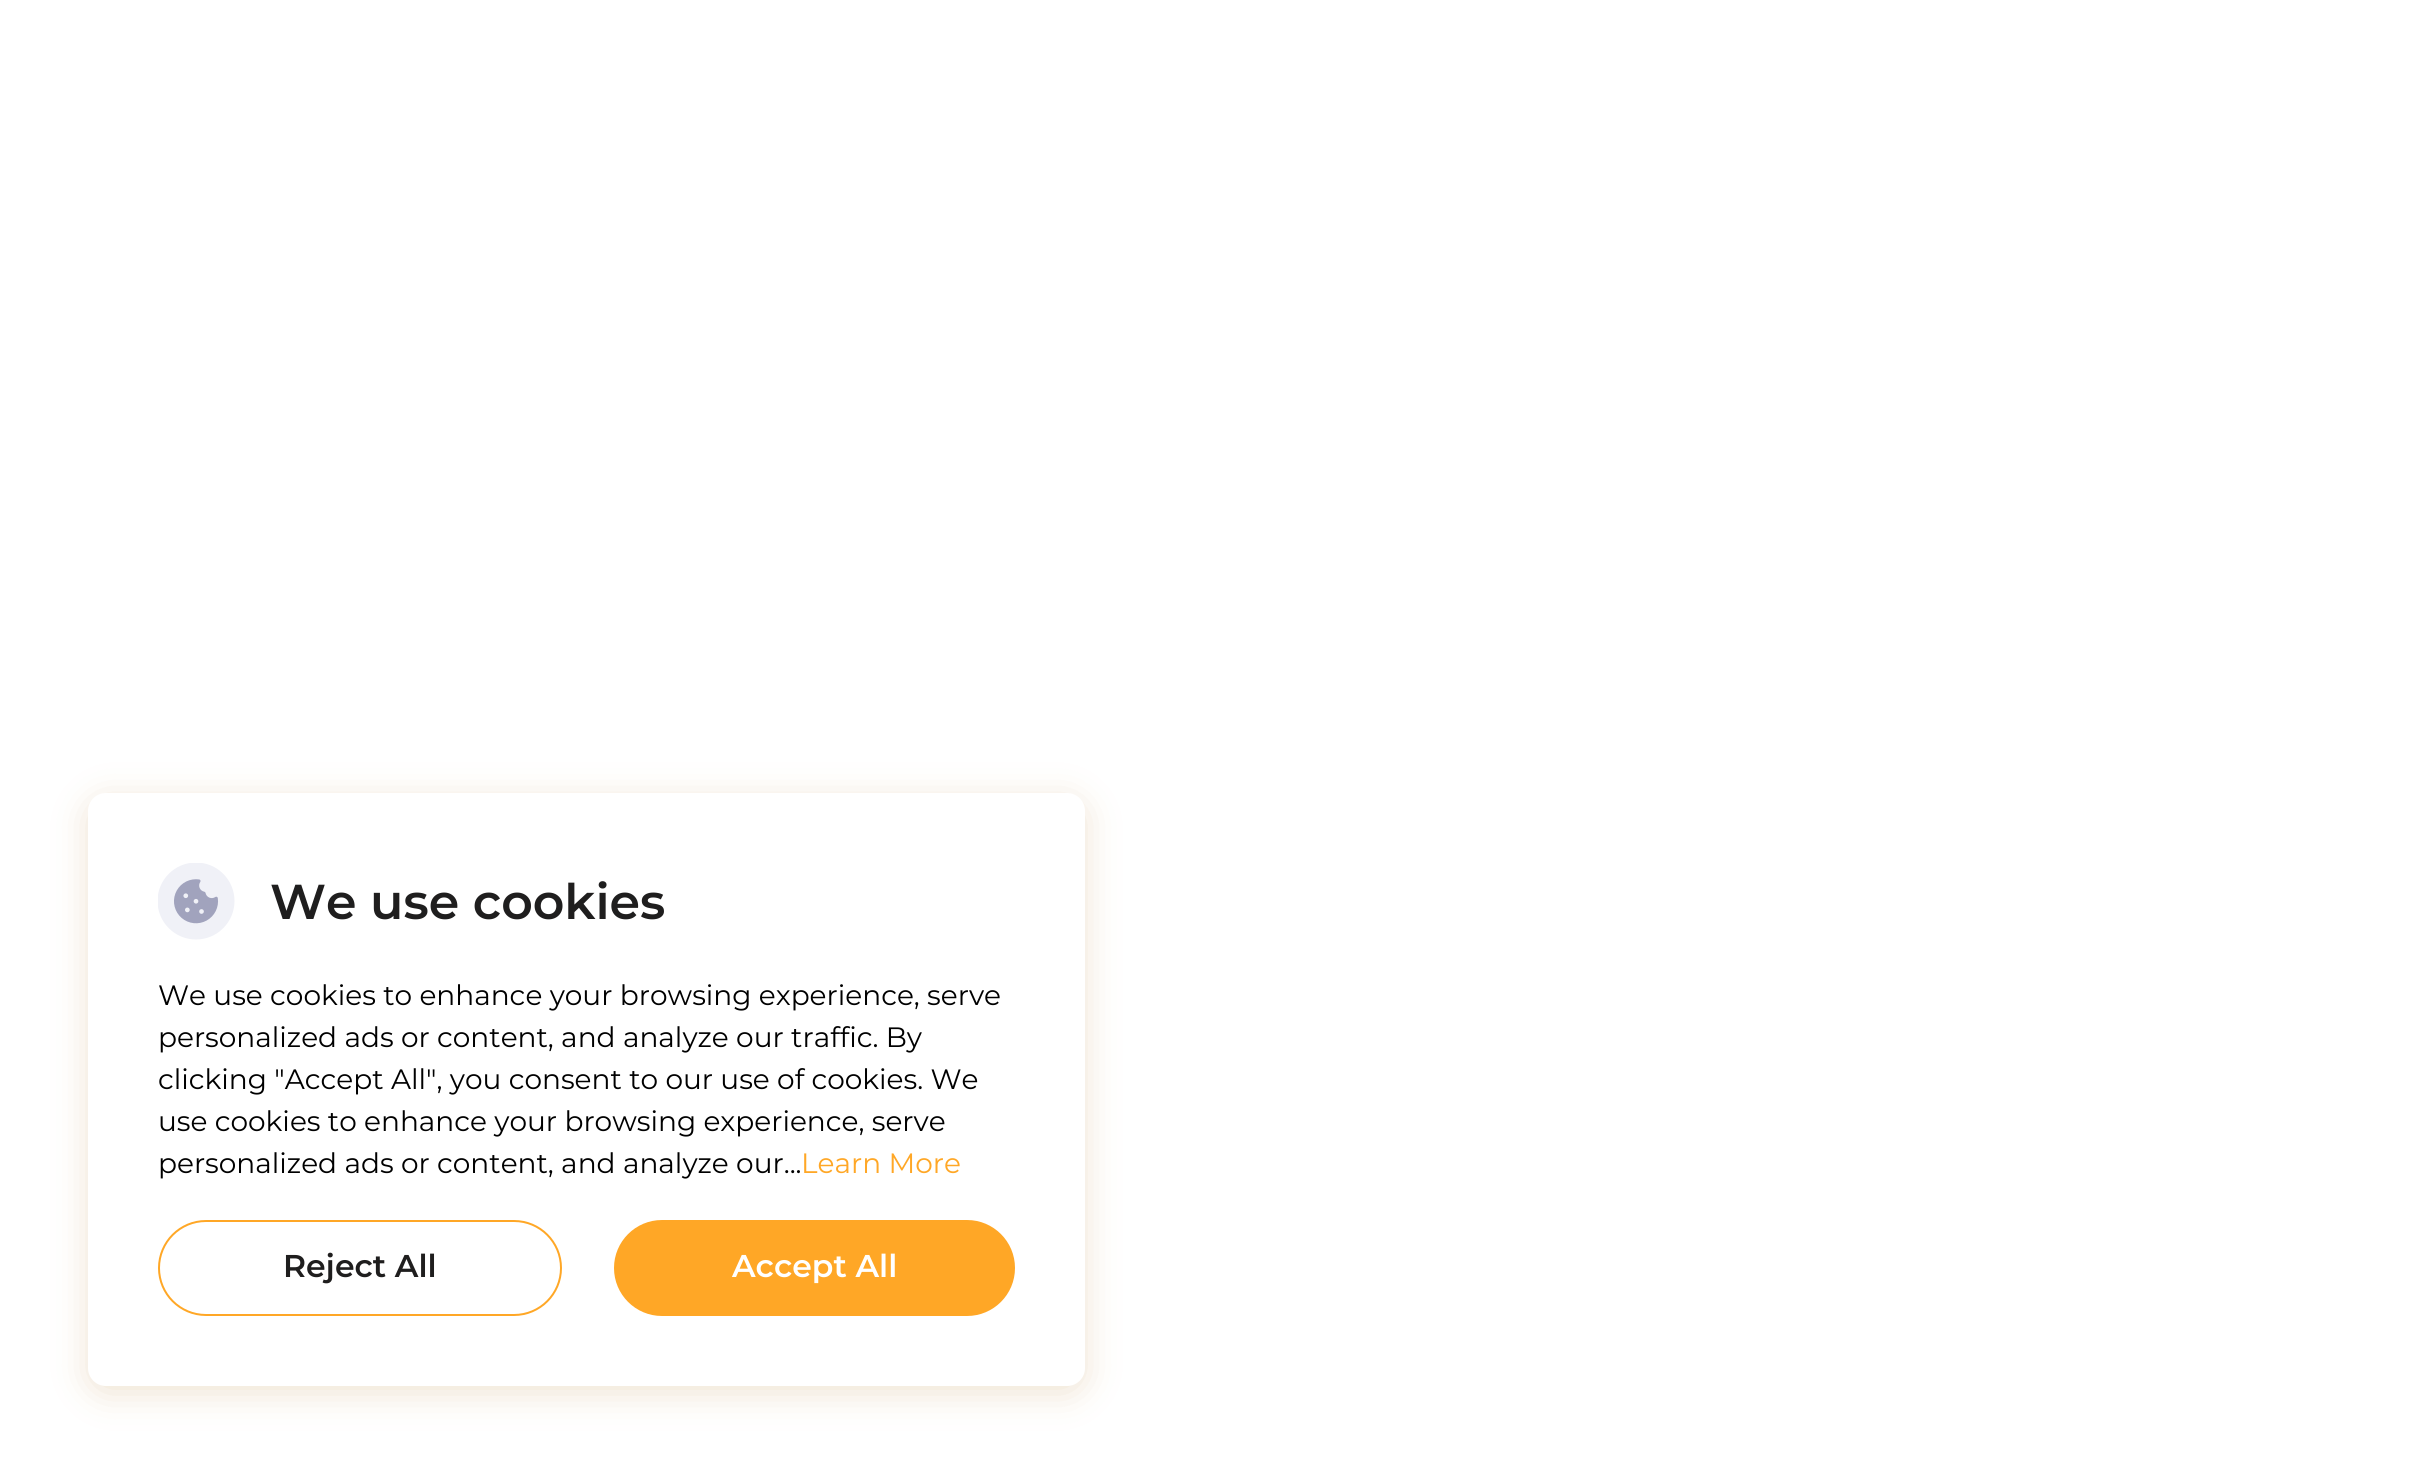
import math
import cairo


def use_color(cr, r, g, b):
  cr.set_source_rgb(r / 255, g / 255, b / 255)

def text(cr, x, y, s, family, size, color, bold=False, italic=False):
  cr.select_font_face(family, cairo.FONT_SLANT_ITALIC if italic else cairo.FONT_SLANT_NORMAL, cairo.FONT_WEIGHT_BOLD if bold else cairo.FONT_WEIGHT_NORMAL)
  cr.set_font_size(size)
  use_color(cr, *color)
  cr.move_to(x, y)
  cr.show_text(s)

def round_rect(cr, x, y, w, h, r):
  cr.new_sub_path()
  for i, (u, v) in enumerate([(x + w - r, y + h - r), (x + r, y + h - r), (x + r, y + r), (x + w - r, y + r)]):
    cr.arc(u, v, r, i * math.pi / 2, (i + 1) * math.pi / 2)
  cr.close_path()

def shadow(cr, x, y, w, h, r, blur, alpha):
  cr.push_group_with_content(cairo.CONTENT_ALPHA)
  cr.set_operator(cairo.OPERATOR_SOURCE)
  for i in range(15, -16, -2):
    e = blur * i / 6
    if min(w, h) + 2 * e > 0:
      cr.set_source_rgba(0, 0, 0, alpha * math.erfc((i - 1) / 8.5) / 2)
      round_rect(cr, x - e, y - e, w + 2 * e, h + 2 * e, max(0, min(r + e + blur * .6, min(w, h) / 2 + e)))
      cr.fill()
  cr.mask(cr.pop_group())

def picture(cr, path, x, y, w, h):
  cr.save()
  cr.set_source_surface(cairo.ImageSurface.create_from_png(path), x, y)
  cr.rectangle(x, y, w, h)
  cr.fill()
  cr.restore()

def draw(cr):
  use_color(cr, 255, 255, 255)
  cr.paint()
  use_color(cr, 178, 116, 26)
  shadow(cr, 88, 800, 997, 593, 18, 17.5, 0.2)
  use_color(cr, 255, 255, 255)
  round_rect(cr, 88, 793, 997, 593, 18)
  cr.fill()
  picture(cr, "img_01.png", 158, 863, 77, 77)
  round_rect(cr, 159, 1221, 402, 94, 47)
  use_color(cr, 255, 167, 38)
  cr.stroke()
  round_rect(cr, 614, 1220, 401, 96, 48)
  cr.fill()
  text(cr, 270, 919, "We use cookies", "Montserrat SemiBold", 49, (31, 30, 30))
  text(cr, 158, 1005, "We use cookies to enhance your browsing experience, serve", "Montserrat", 28, (0, 0, 0))
  text(cr, 158, 1047, "personalized ads or content, and analyze our traffic. By", "Montserrat", 28, (0, 0, 0))
  text(cr, 158, 1089, "clicking \"Accept All\", you consent to our use of cookies. We", "Montserrat", 28, (0, 0, 0))
  text(cr, 158, 1131, "use cookies to enhance your browsing experience, serve", "Montserrat", 28, (0, 0, 0))
  text(cr, 158, 1173, "personalized ads or content, and analyze our...", "Montserrat", 28, (0, 0, 0))
  text(cr, 801, 1173, "Learn More", "Montserrat", 28, (255, 167, 38))
  text(cr, 283, 1277, "Reject All", "Montserrat SemiBold", 31.5, (31, 30, 30))
  text(cr, 732, 1277, "Accept All", "Montserrat SemiBold", 31.5, (255, 255, 255))


surface = cairo.ImageSurface(cairo.FORMAT_RGB24, 2420, 1473)
cr = cairo.Context(surface)
options = cairo.FontOptions()
options.set_hint_metrics(cairo.HINT_METRICS_OFF)
options.set_hint_style(cairo.HINT_STYLE_NONE)
cr.set_font_options(options)
cr.set_miter_limit(4)
draw(cr)
surface.write_to_png("out.png")
